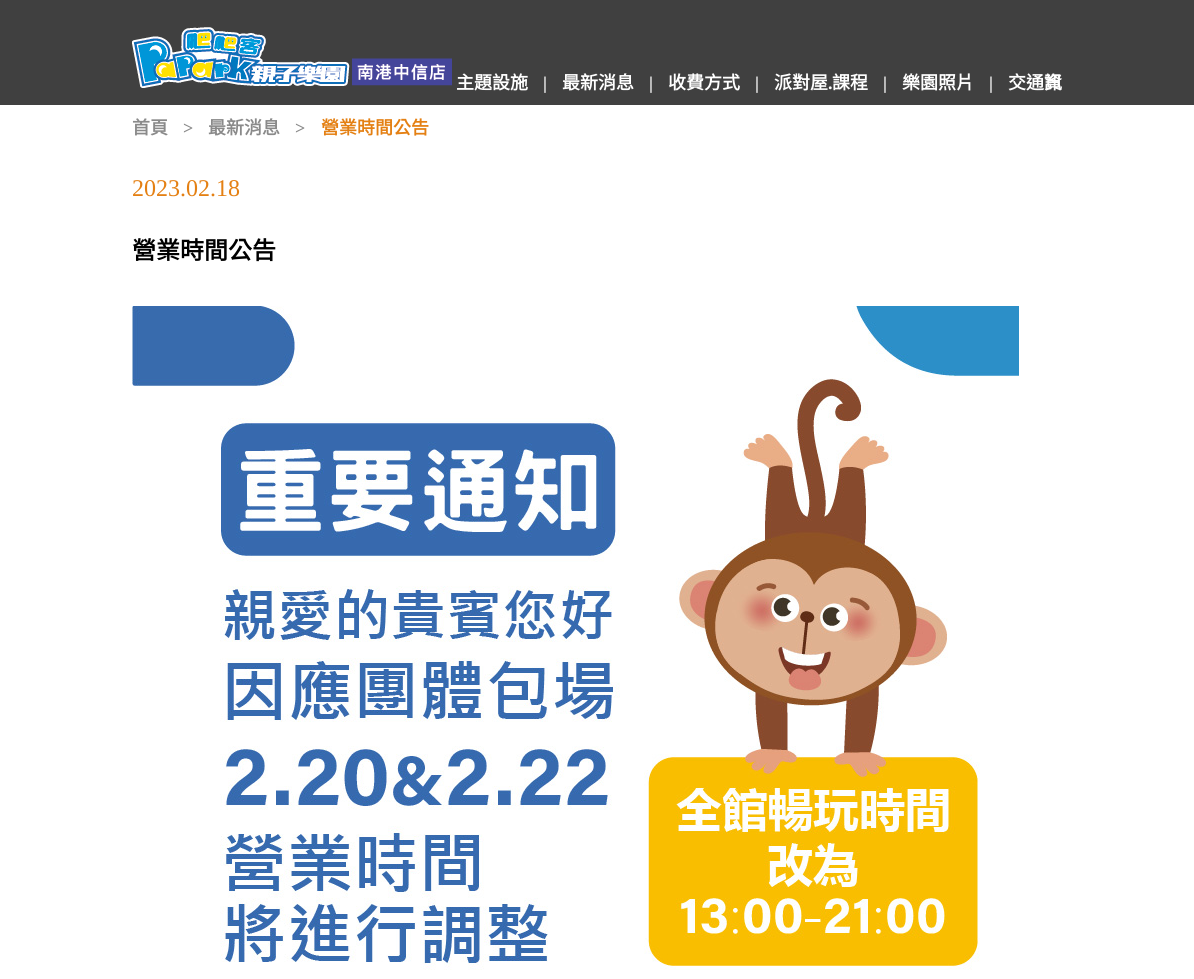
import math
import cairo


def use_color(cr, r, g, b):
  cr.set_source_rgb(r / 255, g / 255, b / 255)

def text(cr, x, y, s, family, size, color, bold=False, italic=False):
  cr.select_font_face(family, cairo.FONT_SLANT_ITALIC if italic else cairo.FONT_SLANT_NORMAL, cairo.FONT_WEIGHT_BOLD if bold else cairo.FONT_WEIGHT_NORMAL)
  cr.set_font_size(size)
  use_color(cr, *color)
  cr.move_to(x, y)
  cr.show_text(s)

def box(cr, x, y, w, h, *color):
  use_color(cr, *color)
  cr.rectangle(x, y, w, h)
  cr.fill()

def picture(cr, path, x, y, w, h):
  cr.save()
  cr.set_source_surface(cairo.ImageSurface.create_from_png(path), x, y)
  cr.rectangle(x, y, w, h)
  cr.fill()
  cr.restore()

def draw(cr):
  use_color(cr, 255, 255, 255)
  cr.paint()
  box(cr, 0, 0, 1194, 105, 64, 64, 64)
  picture(cr, "img_01.png", 132, 27, 320, 61)
  picture(cr, "img_02.png", 132, 306, 887, 664)
  text(cr, 456, 89, "主題設施", "Noto Sans CJK TC", 18, (255, 255, 255), bold=True)
  text(cr, 562, 89, "最新消息", "Noto Sans CJK TC", 18, (255, 255, 255), bold=True)
  text(cr, 668, 89, "收費方式", "Noto Sans CJK TC", 18, (255, 255, 255), bold=True)
  text(cr, 774, 89, "派對屋", "Noto Sans CJK TC", 18, (255, 255, 255), bold=True)
  text(cr, 832, 89, "課程", "Noto Sans CJK TC", 18, (255, 255, 255), bold=True)
  text(cr, 902, 89, "樂園照片", "Noto Sans CJK TC", 18, (255, 255, 255), bold=True)
  text(cr, 1008, 89, "交通資", "Noto Sans CJK TC", 18, (255, 255, 255), bold=True)
  text(cr, 543, 89, "|", "Liberation Serif", 18, (255, 255, 255), bold=True)
  text(cr, 649, 89, "|", "Liberation Serif", 18, (255, 255, 255), bold=True)
  text(cr, 755, 89, "|", "Liberation Serif", 18, (255, 255, 255), bold=True)
  text(cr, 828, 89, ".", "Liberation Serif", 18, (255, 255, 255), bold=True)
  text(cr, 883, 89, "|", "Liberation Serif", 18, (255, 255, 255), bold=True)
  text(cr, 989, 89, "|", "Liberation Serif", 18, (255, 255, 255), bold=True)
  text(cr, 1044, 89, "訊", "Noto Sans CJK TC", 18, (255, 255, 255), bold=True)
  text(cr, 132, 134, "首頁", "Noto Sans CJK TC", 18, (138, 138, 138), bold=True)
  text(cr, 183, 134, ">", "Liberation Serif", 18, (138, 138, 138), bold=True)
  text(cr, 208, 134, "最新消息", "Noto Sans CJK TC", 18, (138, 138, 138), bold=True)
  text(cr, 295, 134, ">", "Liberation Serif", 18, (138, 138, 138), bold=True)
  text(cr, 321, 134, "營業時間公告", "Noto Sans CJK TC", 18, (228, 128, 19), bold=True)
  text(cr, 132, 196, "2023.02.18", "Liberation Serif", 24, (228, 128, 19))
  text(cr, 132, 259, "營業時間公告", "Noto Sans CJK TC", 24, (0, 0, 0), bold=True)


surface = cairo.ImageSurface(cairo.FORMAT_RGB24, 1194, 979)
cr = cairo.Context(surface)
options = cairo.FontOptions()
options.set_hint_metrics(cairo.HINT_METRICS_OFF)
options.set_hint_style(cairo.HINT_STYLE_NONE)
cr.set_font_options(options)
cr.set_miter_limit(4)
draw(cr)
surface.write_to_png("out.png")
